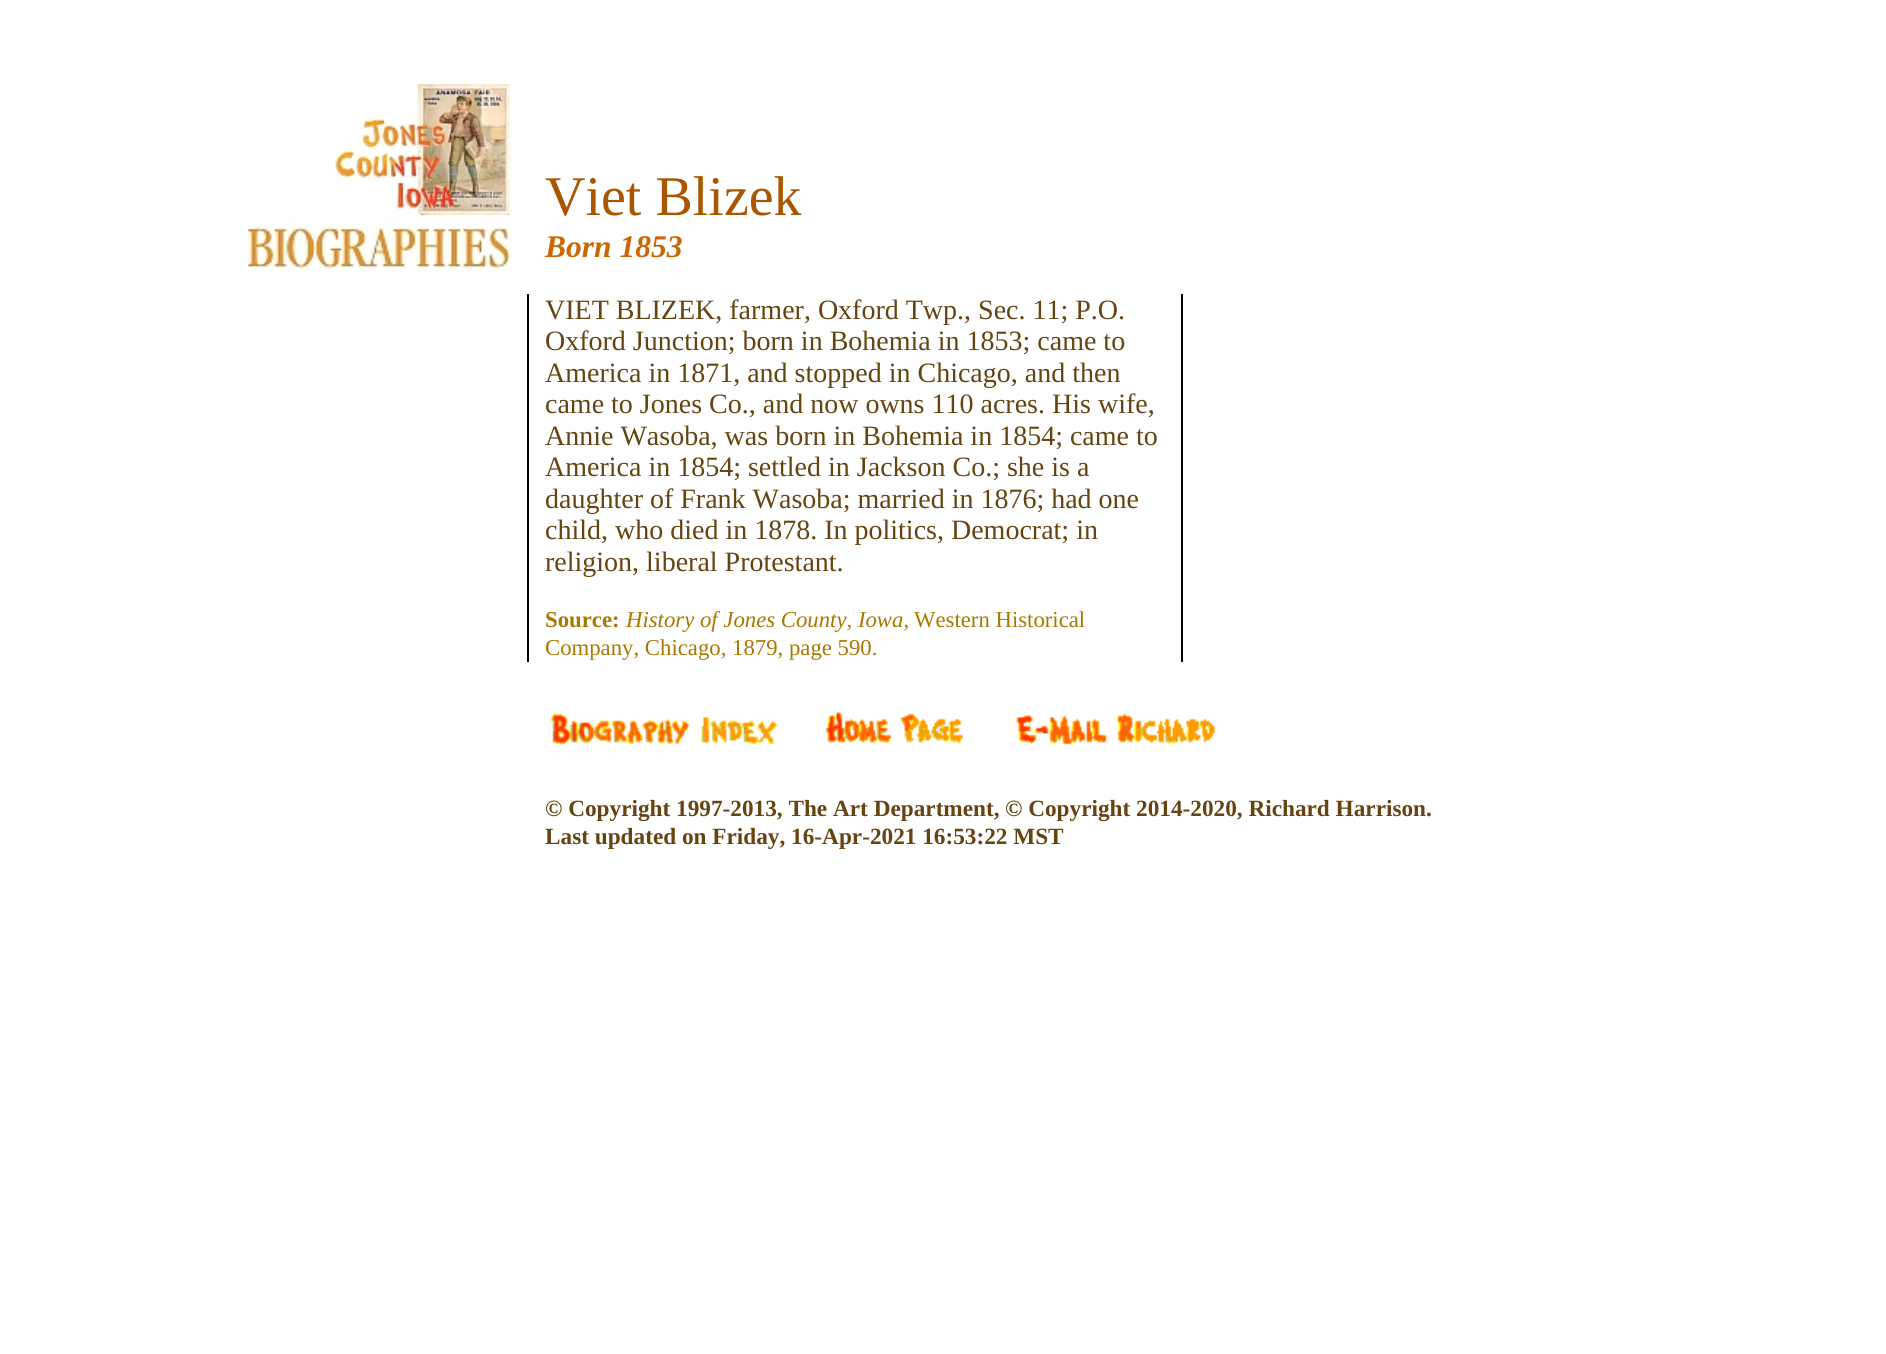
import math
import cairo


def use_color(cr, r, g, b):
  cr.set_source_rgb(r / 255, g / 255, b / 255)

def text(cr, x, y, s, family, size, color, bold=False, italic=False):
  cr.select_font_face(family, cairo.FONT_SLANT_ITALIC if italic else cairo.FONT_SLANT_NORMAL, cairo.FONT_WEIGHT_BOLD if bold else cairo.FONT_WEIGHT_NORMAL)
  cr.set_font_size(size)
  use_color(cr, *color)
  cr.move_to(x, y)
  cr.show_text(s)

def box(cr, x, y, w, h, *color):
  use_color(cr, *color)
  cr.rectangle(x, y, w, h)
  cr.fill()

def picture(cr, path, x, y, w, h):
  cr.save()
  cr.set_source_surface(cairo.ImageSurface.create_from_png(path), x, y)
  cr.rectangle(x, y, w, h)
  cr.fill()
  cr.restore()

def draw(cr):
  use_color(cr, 255, 255, 255)
  cr.paint()
  picture(cr, "img_01.png", 334, 84, 176, 132)
  picture(cr, "img_02.png", 246, 215, 264, 53)
  box(cr, 527, 294, 2, 368, 0, 0, 0)
  box(cr, 1181, 294, 2, 368, 0, 0, 0)
  picture(cr, "img_03.png", 550, 713, 228, 32)
  picture(cr, "img_04.png", 825, 711, 138, 34)
  picture(cr, "img_05.png", 1016, 713, 199, 32)
  text(cr, 545, 215, "Viet Blizek", "Liberation Serif", 56, (170, 85, 0))
  text(cr, 545, 257, "Born 1853", "Liberation Serif", 31.5, (204, 102, 0), bold=True, italic=True)
  text(cr, 545, 319, "VIET BLIZEK, farmer, Oxford Twp., Sec. 11; P.O.", "Liberation Serif", 28, (102, 68, 17))
  text(cr, 545, 350, "Oxford Junction; born in Bohemia in 1853; came to", "Liberation Serif", 28, (102, 68, 17))
  text(cr, 545, 382, "America in 1871, and stopped in Chicago, and then", "Liberation Serif", 28, (102, 68, 17))
  text(cr, 545, 413, "came to Jones Co., and now owns 110 acres. His wife,", "Liberation Serif", 28, (102, 68, 17))
  text(cr, 545, 445, "Annie Wasoba, was born in Bohemia in 1854; came to", "Liberation Serif", 28, (102, 68, 17))
  text(cr, 545, 476, "America in 1854; settled in Jackson Co.; she is a", "Liberation Serif", 28, (102, 68, 17))
  text(cr, 545, 508, "daughter of Frank Wasoba; married in 1876; had one", "Liberation Serif", 28, (102, 68, 17))
  text(cr, 545, 539, "child, who died in 1878. In politics, Democrat; in", "Liberation Serif", 28, (102, 68, 17))
  text(cr, 545, 571, "religion, liberal Protestant.", "Liberation Serif", 28, (102, 68, 17))
  text(cr, 545, 627, "Source:", "Liberation Serif", 22.75, (170, 119, 0), bold=True)
  text(cr, 626, 627, "History of Jones County, Iowa,", "Liberation Serif", 22.75, (170, 119, 0), italic=True)
  text(cr, 914, 627, "Western Historical", "Liberation Serif", 22.75, (170, 119, 0))
  text(cr, 545, 655, "Company, Chicago, 1879, page 590.", "Liberation Serif", 22.75, (170, 119, 0))
  text(cr, 545, 816, "© Copyright 1997-2013, The Art Department,", "Liberation Serif", 23.25, (102, 68, 17), bold=True)
  text(cr, 1005, 816, "© Copyright 2014-2020, Richard Harrison.", "Liberation Serif", 23.25, (102, 68, 17), bold=True)
  text(cr, 545, 844, "Last updated on Friday, 16-Apr-2021 16:53:22 MST", "Liberation Serif", 23.25, (102, 68, 17), bold=True)


surface = cairo.ImageSurface(cairo.FORMAT_RGB24, 1886, 1354)
cr = cairo.Context(surface)
options = cairo.FontOptions()
options.set_hint_metrics(cairo.HINT_METRICS_OFF)
options.set_hint_style(cairo.HINT_STYLE_NONE)
cr.set_font_options(options)
cr.set_miter_limit(4)
draw(cr)
surface.write_to_png("out.png")
